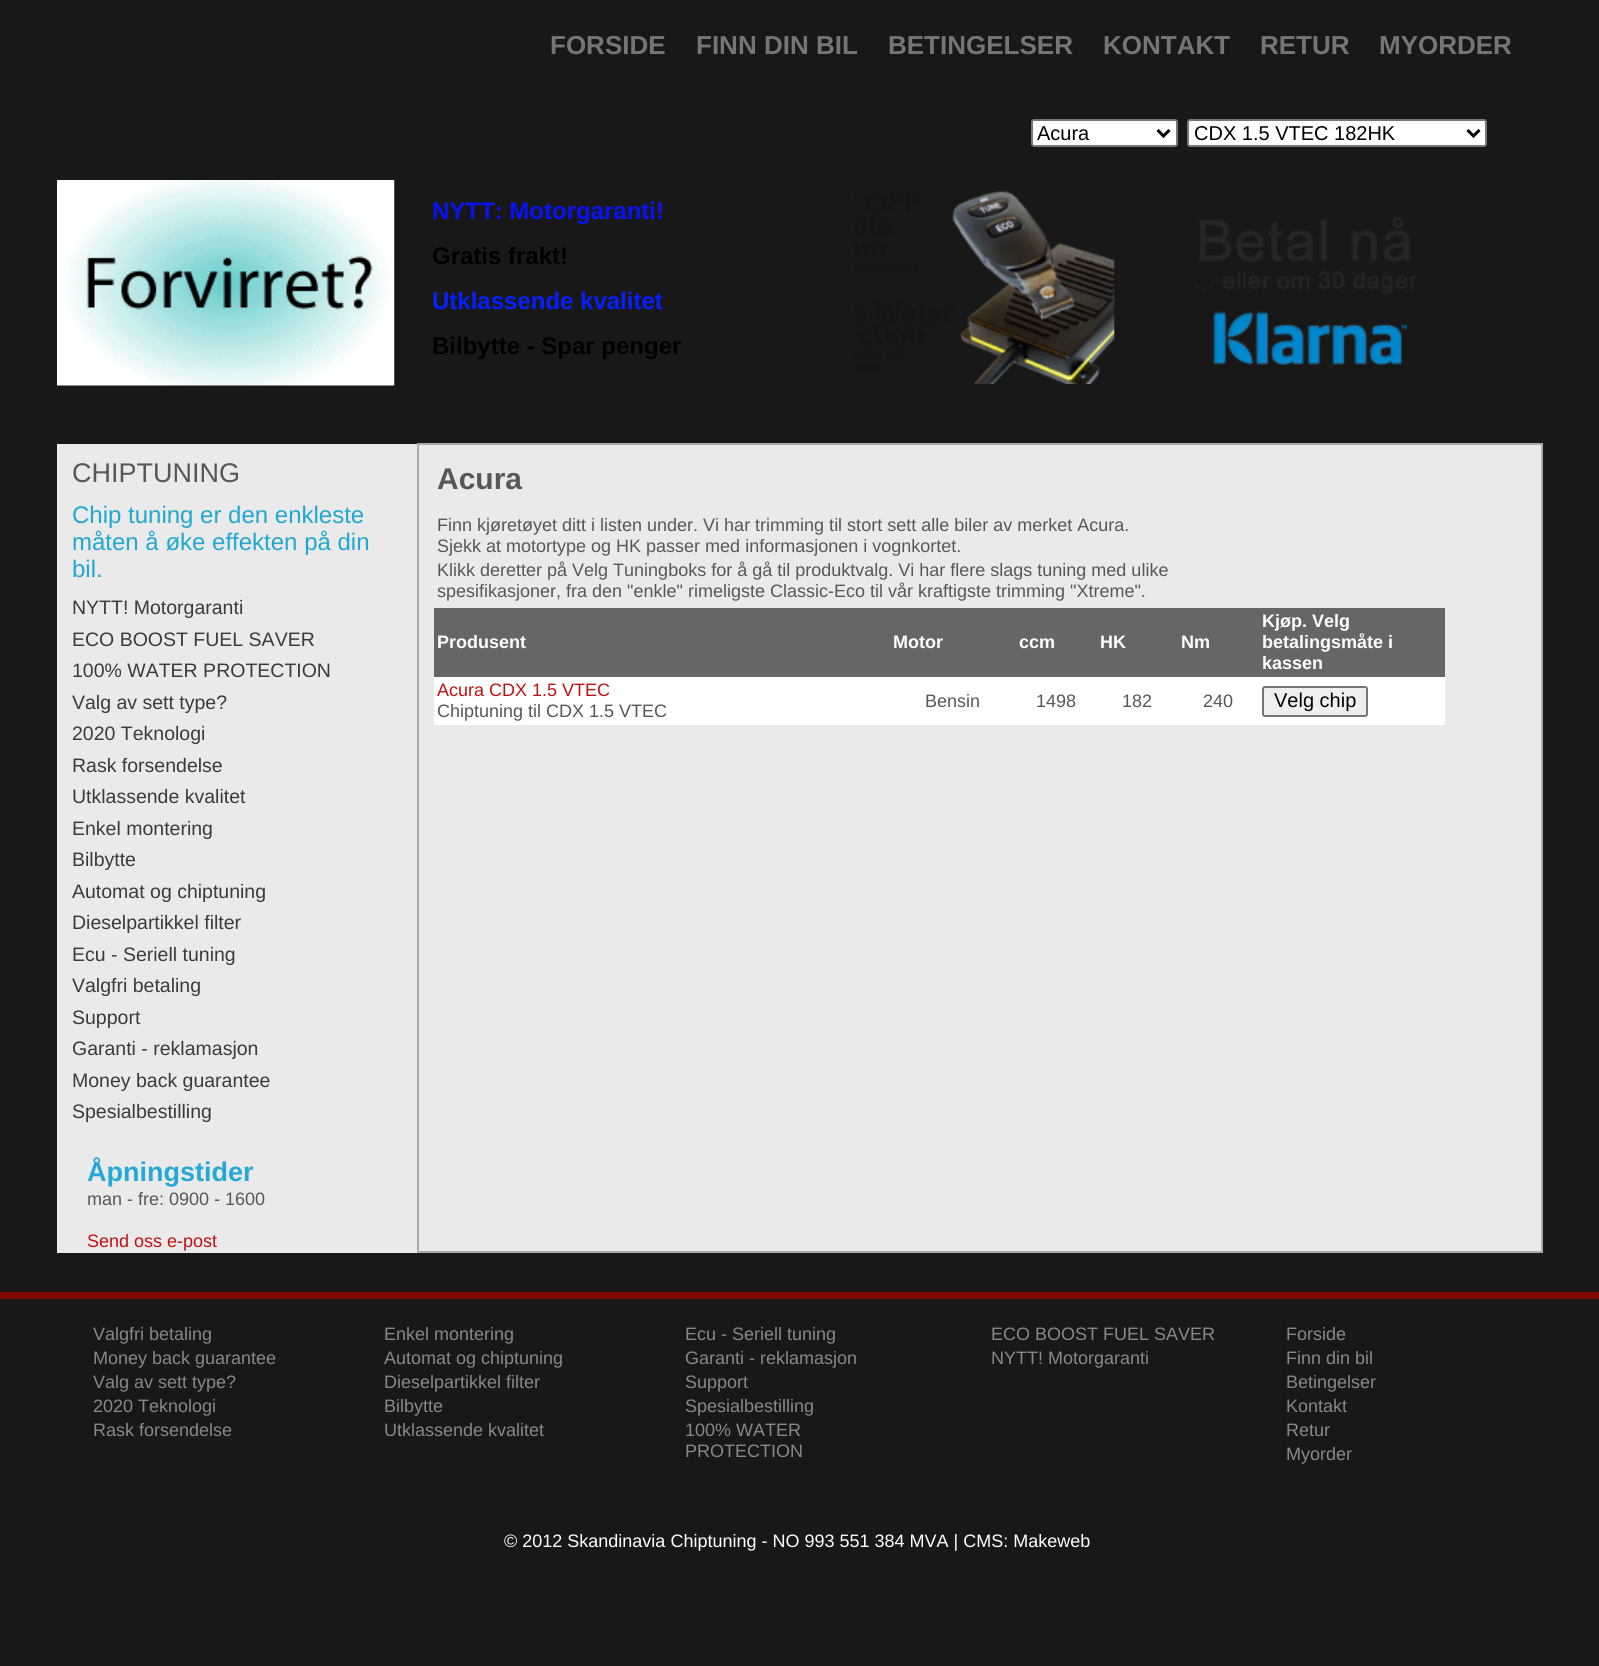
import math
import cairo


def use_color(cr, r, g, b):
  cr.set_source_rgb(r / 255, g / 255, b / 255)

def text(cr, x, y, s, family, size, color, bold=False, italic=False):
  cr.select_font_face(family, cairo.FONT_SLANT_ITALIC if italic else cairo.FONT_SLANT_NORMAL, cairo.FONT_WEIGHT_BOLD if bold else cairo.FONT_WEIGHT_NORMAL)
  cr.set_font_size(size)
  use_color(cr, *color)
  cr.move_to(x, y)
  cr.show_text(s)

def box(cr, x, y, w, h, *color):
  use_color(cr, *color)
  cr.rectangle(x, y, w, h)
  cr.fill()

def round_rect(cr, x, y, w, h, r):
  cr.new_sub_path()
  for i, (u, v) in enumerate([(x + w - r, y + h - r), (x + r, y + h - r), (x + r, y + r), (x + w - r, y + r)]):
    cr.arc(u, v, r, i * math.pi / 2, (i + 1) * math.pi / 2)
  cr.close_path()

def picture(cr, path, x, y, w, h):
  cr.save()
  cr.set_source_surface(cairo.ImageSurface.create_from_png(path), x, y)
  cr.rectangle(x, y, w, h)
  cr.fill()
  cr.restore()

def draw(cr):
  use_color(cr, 24, 24, 24)
  cr.paint()
  use_color(cr, 255, 255, 255)
  round_rect(cr, 1032, 120, 145, 26, 2)
  cr.fill_preserve()
  use_color(cr, 118, 118, 118)
  cr.stroke()
  cr.new_path()
  cr.move_to(1157.5, 130)
  cr.line_to(1163.5, 136)
  cr.line_to(1169.5, 130)
  use_color(cr, 0, 0, 0)
  cr.set_line_width(3)
  cr.stroke()
  use_color(cr, 255, 255, 255)
  round_rect(cr, 1188, 120, 298, 26, 2)
  cr.fill_preserve()
  use_color(cr, 118, 118, 118)
  cr.set_line_width(2)
  cr.stroke()
  cr.new_path()
  cr.move_to(1467.5, 130)
  cr.line_to(1473.5, 136)
  cr.line_to(1479.5, 130)
  use_color(cr, 0, 0, 0)
  cr.set_line_width(3)
  cr.stroke()
  picture(cr, "img_01.png", 57, 180, 338, 206)
  picture(cr, "img_02.png", 855, 190, 260, 194)
  picture(cr, "img_03.png", 1195, 217, 222, 148)
  box(cr, 57, 444, 360, 809, 234, 234, 234)
  box(cr, 419, 445, 1122, 806, 234, 234, 234)
  box(cr, 417, 443, 1125, 2, 170, 170, 170)
  box(cr, 1541, 443, 2, 810, 170, 170, 170)
  box(cr, 417, 1251, 1125, 2, 170, 170, 170)
  box(cr, 417, 443, 2, 810, 170, 170, 170)
  box(cr, 434, 608, 1011, 69, 102, 102, 102)
  box(cr, 434, 677, 1011, 48, 255, 255, 255)
  use_color(cr, 239, 239, 239)
  round_rect(cr, 1263, 687, 104, 29, 2)
  cr.fill_preserve()
  use_color(cr, 118, 118, 118)
  cr.set_line_width(2)
  cr.stroke()
  box(cr, 0, 1292, 1599, 7, 130, 9, 1)
  text(cr, 550, 54, "FORSIDE", "Liberation Sans", 26, (117, 117, 117), bold=True)
  text(cr, 696, 54, "FINN DIN BIL", "Liberation Sans", 26, (117, 117, 117), bold=True)
  text(cr, 888, 54, "BETINGELSER", "Liberation Sans", 26, (117, 117, 117), bold=True)
  text(cr, 1103, 54, "KONTAKT", "Liberation Sans", 26, (117, 117, 117), bold=True)
  text(cr, 1260, 54, "RETUR", "Liberation Sans", 26, (117, 117, 117), bold=True)
  text(cr, 1379, 54, "MYORDER", "Liberation Sans", 26, (117, 117, 117), bold=True)
  text(cr, 1037, 140, "Acura", "Liberation Sans", 20, (0, 0, 0))
  text(cr, 1194, 140, "CDX 1.5 VTEC 182HK", "Liberation Sans", 20, (0, 0, 0))
  text(cr, 432, 219, "NYTT: Motorgaranti!", "Liberation Sans", 24, (8, 19, 244), bold=True)
  text(cr, 432, 264, "Gratis frakt!", "Liberation Sans", 24, (0, 0, 0), bold=True)
  text(cr, 432, 309, "Utklassende kvalitet", "Liberation Sans", 24, (6, 31, 252), bold=True)
  text(cr, 432, 354, "Bilbytte - Spar penger", "Liberation Sans", 24, (0, 0, 0), bold=True)
  text(cr, 72, 482, "CHIPTUNING", "Liberation Sans", 27, (87, 87, 87))
  text(cr, 72, 523, "Chip tuning er den enkleste", "Liberation Sans", 24, (33, 168, 208))
  text(cr, 72, 550, "måten å øke effekten på din", "Liberation Sans", 24, (33, 168, 208))
  text(cr, 72, 577, "bil.", "Liberation Sans", 24, (33, 168, 208))
  text(cr, 72, 614, "NYTT! Motorgaranti", "Liberation Sans", 19.5, (59, 59, 59))
  text(cr, 72, 646, "ECO BOOST FUEL SAVER", "Liberation Sans", 19.5, (59, 59, 59))
  text(cr, 72, 677, "100% WATER PROTECTION", "Liberation Sans", 19.5, (59, 59, 59))
  text(cr, 72, 709, "Valg av sett type?", "Liberation Sans", 19.5, (59, 59, 59))
  text(cr, 72, 740, "2020 Teknologi", "Liberation Sans", 19.5, (59, 59, 59))
  text(cr, 72, 772, "Rask forsendelse", "Liberation Sans", 19.5, (59, 59, 59))
  text(cr, 72, 803, "Utklassende kvalitet", "Liberation Sans", 19.5, (59, 59, 59))
  text(cr, 72, 835, "Enkel montering", "Liberation Sans", 19.5, (59, 59, 59))
  text(cr, 72, 866, "Bilbytte", "Liberation Sans", 19.5, (59, 59, 59))
  text(cr, 72, 898, "Automat og chiptuning", "Liberation Sans", 19.5, (59, 59, 59))
  text(cr, 72, 929, "Dieselpartikkel filter", "Liberation Sans", 19.5, (59, 59, 59))
  text(cr, 72, 961, "Ecu - Seriell tuning", "Liberation Sans", 19.5, (59, 59, 59))
  text(cr, 72, 992, "Valgfri betaling", "Liberation Sans", 19.5, (59, 59, 59))
  text(cr, 72, 1024, "Support", "Liberation Sans", 19.5, (59, 59, 59))
  text(cr, 72, 1055, "Garanti - reklamasjon", "Liberation Sans", 19.5, (59, 59, 59))
  text(cr, 72, 1087, "Money back guarantee", "Liberation Sans", 19.5, (59, 59, 59))
  text(cr, 72, 1118, "Spesialbestilling", "Liberation Sans", 19.5, (59, 59, 59))
  text(cr, 87, 1181, "Åpningstider", "Liberation Sans", 27, (37, 168, 214), bold=True)
  text(cr, 87, 1205, "man - fre: 0900 - 1600", "Liberation Sans", 18, (87, 87, 87))
  text(cr, 87, 1247, "Send oss e-post", "Liberation Sans", 18, (192, 17, 17))
  text(cr, 437, 489, "Acura", "Liberation Sans", 30, (87, 87, 87), bold=True)
  text(cr, 437, 531, "Finn kjøretøyet ditt i listen under. Vi har trimming til stort sett alle biler av merket Acura.", "Liberation Sans", 18, (87, 87, 87))
  text(cr, 437, 552, "Sjekk at motortype og HK passer med informasjonen i vognkortet.", "Liberation Sans", 18, (87, 87, 87))
  text(cr, 437, 576, "Klikk deretter på Velg Tuningboks for å gå til produktvalg. Vi har flere slags tuning med ulike", "Liberation Sans", 18, (87, 87, 87))
  text(cr, 437, 597, "spesifikasjoner, fra den \"enkle\" rimeligste Classic-Eco til vår kraftigste trimming \"Xtreme\".", "Liberation Sans", 18, (87, 87, 87))
  text(cr, 437, 648, "Produsent", "Liberation Sans", 18, (255, 255, 255), bold=True)
  text(cr, 893, 648, "Motor", "Liberation Sans", 18, (255, 255, 255), bold=True)
  text(cr, 1019, 648, "ccm", "Liberation Sans", 18, (255, 255, 255), bold=True)
  text(cr, 1100, 648, "HK", "Liberation Sans", 18, (255, 255, 255), bold=True)
  text(cr, 1181, 648, "Nm", "Liberation Sans", 18, (255, 255, 255), bold=True)
  text(cr, 1262, 627, "Kjøp. Velg", "Liberation Sans", 18, (255, 255, 255), bold=True)
  text(cr, 1262, 648, "betalingsmåte i", "Liberation Sans", 18, (255, 255, 255), bold=True)
  text(cr, 1262, 669, "kassen", "Liberation Sans", 18, (255, 255, 255), bold=True)
  text(cr, 437, 696, "Acura CDX 1.5 VTEC", "Liberation Sans", 18, (192, 17, 17))
  text(cr, 437, 717, "Chiptuning til CDX 1.5 VTEC", "Liberation Sans", 18, (87, 87, 87))
  text(cr, 925, 707, "Bensin", "Liberation Sans", 18, (87, 87, 87))
  text(cr, 1036, 707, "1498", "Liberation Sans", 18, (87, 87, 87))
  text(cr, 1122, 707, "182", "Liberation Sans", 18, (87, 87, 87))
  text(cr, 1203, 707, "240", "Liberation Sans", 18, (87, 87, 87))
  text(cr, 1274, 707, "Velg chip", "Liberation Sans", 20, (0, 0, 0))
  text(cr, 93, 1340, "Valgfri betaling", "Liberation Sans", 18, (136, 136, 136))
  text(cr, 93, 1364, "Money back guarantee", "Liberation Sans", 18, (136, 136, 136))
  text(cr, 93, 1388, "Valg av sett type?", "Liberation Sans", 18, (136, 136, 136))
  text(cr, 93, 1412, "2020 Teknologi", "Liberation Sans", 18, (136, 136, 136))
  text(cr, 93, 1436, "Rask forsendelse", "Liberation Sans", 18, (136, 136, 136))
  text(cr, 384, 1340, "Enkel montering", "Liberation Sans", 18, (136, 136, 136))
  text(cr, 384, 1364, "Automat og chiptuning", "Liberation Sans", 18, (136, 136, 136))
  text(cr, 384, 1388, "Dieselpartikkel filter", "Liberation Sans", 18, (136, 136, 136))
  text(cr, 384, 1412, "Bilbytte", "Liberation Sans", 18, (136, 136, 136))
  text(cr, 384, 1436, "Utklassende kvalitet", "Liberation Sans", 18, (136, 136, 136))
  text(cr, 685, 1340, "Ecu - Seriell tuning", "Liberation Sans", 18, (136, 136, 136))
  text(cr, 685, 1364, "Garanti - reklamasjon", "Liberation Sans", 18, (136, 136, 136))
  text(cr, 685, 1388, "Support", "Liberation Sans", 18, (136, 136, 136))
  text(cr, 685, 1412, "Spesialbestilling", "Liberation Sans", 18, (136, 136, 136))
  text(cr, 685, 1436, "100% WATER", "Liberation Sans", 18, (136, 136, 136))
  text(cr, 685, 1457, "PROTECTION", "Liberation Sans", 18, (136, 136, 136))
  text(cr, 991, 1340, "ECO BOOST FUEL SAVER", "Liberation Sans", 18, (136, 136, 136))
  text(cr, 991, 1364, "NYTT! Motorgaranti", "Liberation Sans", 18, (136, 136, 136))
  text(cr, 1286, 1340, "Forside", "Liberation Sans", 18, (136, 136, 136))
  text(cr, 1286, 1364, "Finn din bil", "Liberation Sans", 18, (136, 136, 136))
  text(cr, 1286, 1388, "Betingelser", "Liberation Sans", 18, (136, 136, 136))
  text(cr, 1286, 1412, "Kontakt", "Liberation Sans", 18, (136, 136, 136))
  text(cr, 1286, 1436, "Retur", "Liberation Sans", 18, (136, 136, 136))
  text(cr, 1286, 1460, "Myorder", "Liberation Sans", 18, (136, 136, 136))
  text(cr, 504, 1547, "© 2012 Skandinavia Chiptuning - NO 993 551 384 MVA | CMS: Makeweb", "Liberation Sans", 18, (255, 255, 255))


surface = cairo.ImageSurface(cairo.FORMAT_RGB24, 1599, 1666)
cr = cairo.Context(surface)
options = cairo.FontOptions()
options.set_hint_metrics(cairo.HINT_METRICS_OFF)
options.set_hint_style(cairo.HINT_STYLE_NONE)
cr.set_font_options(options)
cr.set_miter_limit(4)
draw(cr)
surface.write_to_png("out.png")
